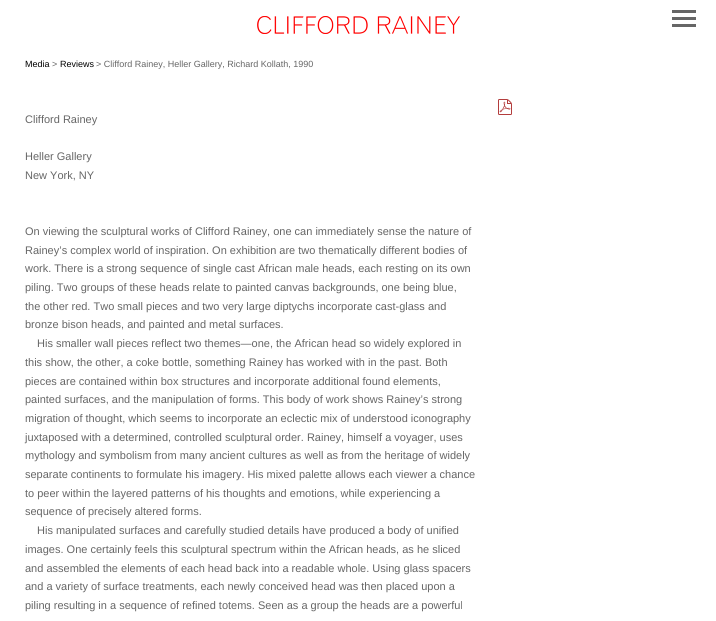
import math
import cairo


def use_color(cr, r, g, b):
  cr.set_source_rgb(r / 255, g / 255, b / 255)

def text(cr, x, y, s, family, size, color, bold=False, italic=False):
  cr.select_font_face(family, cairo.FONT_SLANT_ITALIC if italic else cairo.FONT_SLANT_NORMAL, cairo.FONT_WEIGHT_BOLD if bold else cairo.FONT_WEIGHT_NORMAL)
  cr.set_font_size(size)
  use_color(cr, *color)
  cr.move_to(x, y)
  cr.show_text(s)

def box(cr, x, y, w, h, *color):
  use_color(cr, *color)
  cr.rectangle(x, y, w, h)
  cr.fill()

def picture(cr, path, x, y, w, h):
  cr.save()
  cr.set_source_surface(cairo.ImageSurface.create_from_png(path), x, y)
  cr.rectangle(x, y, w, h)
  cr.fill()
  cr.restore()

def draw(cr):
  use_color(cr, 255, 255, 255)
  cr.paint()
  picture(cr, "img_01.png", 257, 16, 203, 18)
  box(cr, 672, 10, 24, 3, 102, 102, 102)
  box(cr, 672, 17, 24, 3, 102, 102, 102)
  box(cr, 672, 24, 24, 3, 102, 102, 102)
  picture(cr, "img_02.png", 498, 99, 14, 16)
  text(cr, 25, 67, "Media", "Liberation Sans", 9, (0, 0, 0))
  text(cr, 52, 67, ">", "Liberation Sans", 9, (102, 102, 102))
  text(cr, 60, 67, "Reviews", "Liberation Sans", 9, (0, 0, 0))
  text(cr, 96, 67, "> Clifford Rainey, Heller Gallery, Richard Kollath, 1990", "Liberation Sans", 9, (102, 102, 102))
  text(cr, 25, 123, "Clifford Rainey", "Liberation Sans", 11, (102, 102, 102))
  text(cr, 25, 160, "Heller Gallery", "Liberation Sans", 11, (102, 102, 102))
  text(cr, 25, 179, "New York, NY", "Liberation Sans", 11, (102, 102, 102))
  text(cr, 25, 235, "On viewing the sculptural works of Clifford Rainey, one can immediately sense the nature of", "Liberation Sans", 11, (102, 102, 102))
  text(cr, 25, 254, "Rainey’s complex world of inspiration. On exhibition are two thematically different bodies of", "Liberation Sans", 11, (102, 102, 102))
  text(cr, 25, 272, "work. There is a strong sequence of single cast African male heads, each resting on its own", "Liberation Sans", 11, (102, 102, 102))
  text(cr, 25, 291, "piling. Two groups of these heads relate to painted canvas backgrounds, one being blue,", "Liberation Sans", 11, (102, 102, 102))
  text(cr, 25, 310, "the other red. Two small pieces and two very large diptychs incorporate cast-glass and", "Liberation Sans", 11, (102, 102, 102))
  text(cr, 25, 328, "bronze bison heads, and painted and metal surfaces.", "Liberation Sans", 11, (102, 102, 102))
  text(cr, 37, 347, "His smaller wall pieces reflect two themes—one, the African head so widely explored in", "Liberation Sans", 11, (102, 102, 102))
  text(cr, 25, 366, "this show, the other, a coke bottle, something Rainey has worked with in the past. Both", "Liberation Sans", 11, (102, 102, 102))
  text(cr, 25, 385, "pieces are contained within box structures and incorporate additional found elements,", "Liberation Sans", 11, (102, 102, 102))
  text(cr, 25, 403, "painted surfaces, and the manipulation of forms. This body of work shows Rainey’s strong", "Liberation Sans", 11, (102, 102, 102))
  text(cr, 25, 422, "migration of thought, which seems to incorporate an eclectic mix of understood iconography", "Liberation Sans", 11, (102, 102, 102))
  text(cr, 25, 441, "juxtaposed with a determined, controlled sculptural order. Rainey, himself a voyager, uses", "Liberation Sans", 11, (102, 102, 102))
  text(cr, 25, 459, "mythology and symbolism from many ancient cultures as well as from the heritage of widely", "Liberation Sans", 11, (102, 102, 102))
  text(cr, 25, 478, "separate continents to formulate his imagery. His mixed palette allows each viewer a chance", "Liberation Sans", 11, (102, 102, 102))
  text(cr, 25, 497, "to peer within the layered patterns of his thoughts and emotions, while experiencing a", "Liberation Sans", 11, (102, 102, 102))
  text(cr, 25, 515, "sequence of precisely altered forms.", "Liberation Sans", 11, (102, 102, 102))
  text(cr, 37, 534, "His manipulated surfaces and carefully studied details have produced a body of unified", "Liberation Sans", 11, (102, 102, 102))
  text(cr, 25, 553, "images. One certainly feels this sculptural spectrum within the African heads, as he sliced", "Liberation Sans", 11, (102, 102, 102))
  text(cr, 25, 572, "and assembled the elements of each head back into a readable whole. Using glass spacers", "Liberation Sans", 11, (102, 102, 102))
  text(cr, 25, 590, "and a variety of surface treatments, each newly conceived head was then placed upon a", "Liberation Sans", 11, (102, 102, 102))
  text(cr, 25, 609, "piling resulting in a sequence of refined totems. Seen as a group the heads are a powerful", "Liberation Sans", 11, (102, 102, 102))


surface = cairo.ImageSurface(cairo.FORMAT_RGB24, 716, 621)
cr = cairo.Context(surface)
options = cairo.FontOptions()
options.set_hint_metrics(cairo.HINT_METRICS_OFF)
options.set_hint_style(cairo.HINT_STYLE_NONE)
cr.set_font_options(options)
cr.set_miter_limit(4)
draw(cr)
surface.write_to_png("out.png")
